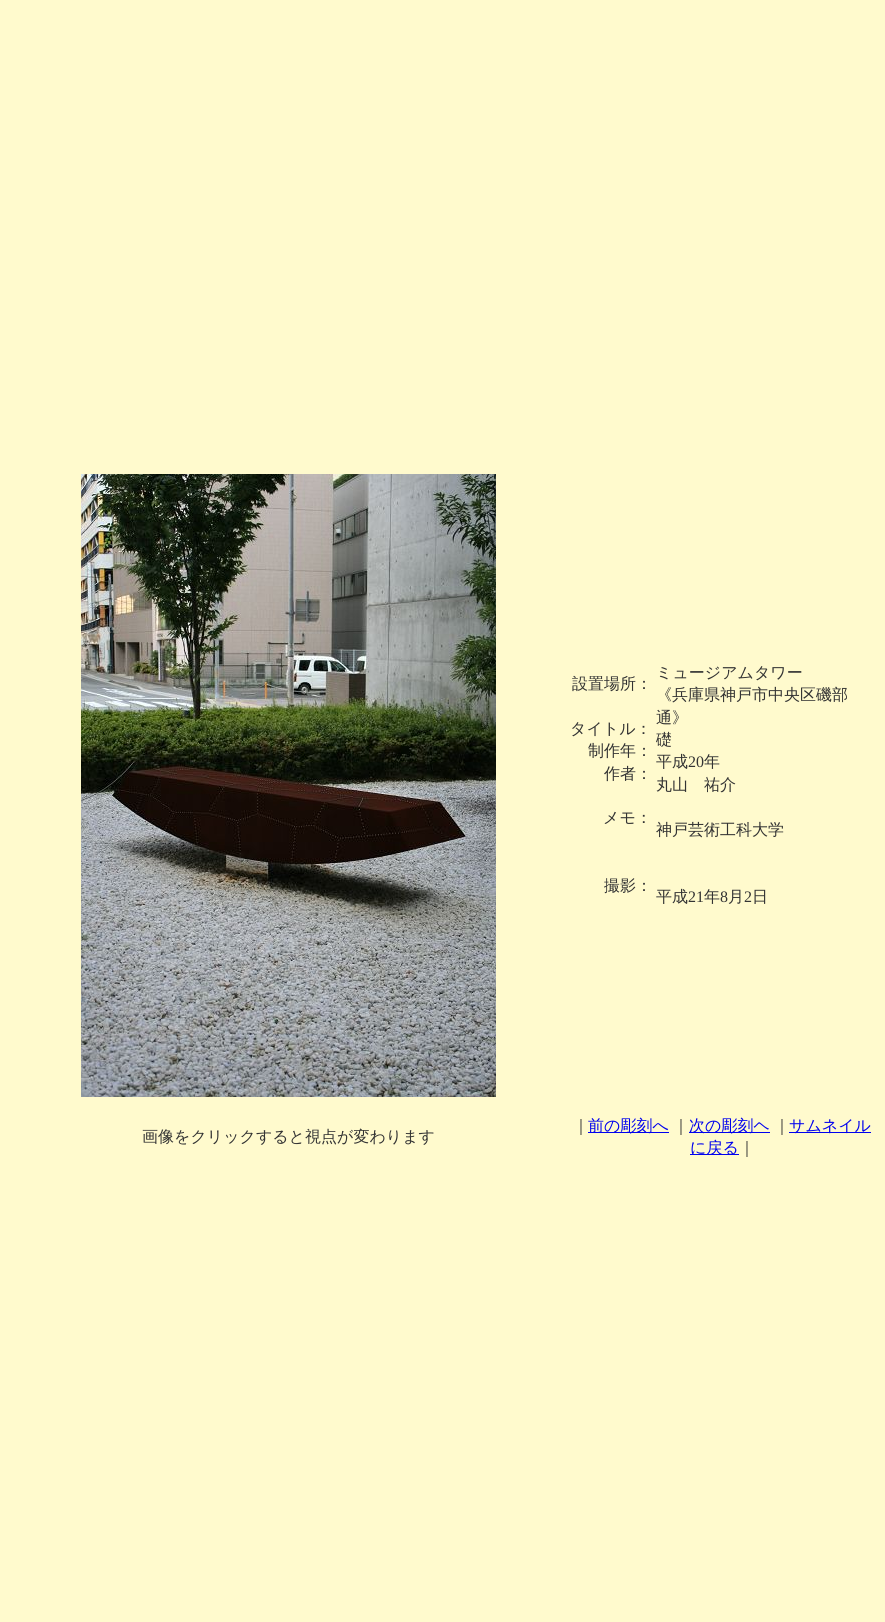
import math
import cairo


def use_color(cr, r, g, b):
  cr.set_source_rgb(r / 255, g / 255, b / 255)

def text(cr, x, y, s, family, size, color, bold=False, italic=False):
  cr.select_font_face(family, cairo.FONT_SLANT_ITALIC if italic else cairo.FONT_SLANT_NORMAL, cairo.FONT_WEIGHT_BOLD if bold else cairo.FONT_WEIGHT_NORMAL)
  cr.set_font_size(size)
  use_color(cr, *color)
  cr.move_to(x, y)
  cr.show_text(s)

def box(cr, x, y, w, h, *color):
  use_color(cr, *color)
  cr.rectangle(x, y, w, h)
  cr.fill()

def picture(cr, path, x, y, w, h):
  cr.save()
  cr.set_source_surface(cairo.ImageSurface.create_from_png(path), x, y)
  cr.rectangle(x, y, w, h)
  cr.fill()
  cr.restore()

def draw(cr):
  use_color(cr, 255, 250, 205)
  cr.paint()
  picture(cr, "img_01.png", 81, 474, 415, 623)
  box(cr, 588, 1132, 81, 1, 0, 0, 238)
  box(cr, 689, 1132, 81, 1, 0, 0, 238)
  box(cr, 789, 1132, 82, 1, 0, 0, 238)
  box(cr, 690, 1154, 49, 1, 0, 0, 238)
  text(cr, 572, 689, "設置場所：", "WenQuanYi Zen Hei Medium", 16, (51, 51, 51))
  text(cr, 570, 734, "タイトル：", "WenQuanYi Zen Hei Medium", 16, (51, 51, 51))
  text(cr, 588, 756, "制作年：", "WenQuanYi Zen Hei Medium", 16, (51, 51, 51))
  text(cr, 604, 779, "作者：", "WenQuanYi Zen Hei Medium", 16, (51, 51, 51))
  text(cr, 603, 823, "メモ：", "WenQuanYi Zen Hei Medium", 16, (51, 51, 51))
  text(cr, 604, 891, "撮影：", "WenQuanYi Zen Hei Medium", 16, (51, 51, 51))
  text(cr, 656, 678, "ミュージアムタワー", "WenQuanYi Zen Hei Medium", 16, (51, 51, 51))
  text(cr, 656, 700, "《兵庫県神戸市中央区磯部", "WenQuanYi Zen Hei Medium", 16, (51, 51, 51))
  text(cr, 656, 723, "通》", "WenQuanYi Zen Hei Medium", 16, (51, 51, 51))
  text(cr, 656, 745, "礎", "WenQuanYi Zen Hei Medium", 16, (51, 51, 51))
  text(cr, 656, 767, "平成", "WenQuanYi Zen Hei Medium", 16, (51, 51, 51))
  text(cr, 688, 767, "20", "Liberation Serif", 16, (51, 51, 51))
  text(cr, 704, 767, "年", "WenQuanYi Zen Hei Medium", 16, (51, 51, 51))
  text(cr, 656, 790, "丸山　祐介", "WenQuanYi Zen Hei Medium", 16, (51, 51, 51))
  text(cr, 656, 835, "神戸芸術工科大学", "WenQuanYi Zen Hei Medium", 16, (51, 51, 51))
  text(cr, 656, 902, "平成", "WenQuanYi Zen Hei Medium", 16, (51, 51, 51))
  text(cr, 688, 902, "21", "Liberation Serif", 16, (51, 51, 51))
  text(cr, 704, 902, "年", "WenQuanYi Zen Hei Medium", 16, (51, 51, 51))
  text(cr, 720, 902, "8", "Liberation Serif", 16, (51, 51, 51))
  text(cr, 728, 902, "月", "WenQuanYi Zen Hei Medium", 16, (51, 51, 51))
  text(cr, 744, 902, "2", "Liberation Serif", 16, (51, 51, 51))
  text(cr, 752, 902, "日", "WenQuanYi Zen Hei Medium", 16, (51, 51, 51))
  text(cr, 142, 1142, "画像をクリックすると視点が変わります", "WenQuanYi Zen Hei Medium", 16, (51, 51, 51))
  text(cr, 573, 1131, "｜", "WenQuanYi Zen Hei Medium", 16, (51, 51, 51))
  text(cr, 588, 1131, "前の彫刻へ", "WenQuanYi Zen Hei Medium", 16, (0, 0, 238))
  text(cr, 673, 1131, "｜", "WenQuanYi Zen Hei Medium", 16, (51, 51, 51))
  text(cr, 689, 1131, "次の彫刻ヘ", "WenQuanYi Zen Hei Medium", 16, (0, 0, 238))
  text(cr, 774, 1131, "｜", "WenQuanYi Zen Hei Medium", 16, (51, 51, 51))
  text(cr, 789, 1131, "サムネイル", "WenQuanYi Zen Hei Medium", 16, (0, 0, 238))
  text(cr, 690, 1153, "に戻る", "WenQuanYi Zen Hei Medium", 16, (0, 0, 238))
  text(cr, 739, 1153, "｜", "WenQuanYi Zen Hei Medium", 16, (51, 51, 51))


surface = cairo.ImageSurface(cairo.FORMAT_RGB24, 885, 1622)
cr = cairo.Context(surface)
options = cairo.FontOptions()
options.set_hint_metrics(cairo.HINT_METRICS_OFF)
options.set_hint_style(cairo.HINT_STYLE_NONE)
cr.set_font_options(options)
cr.set_miter_limit(4)
draw(cr)
surface.write_to_png("out.png")
